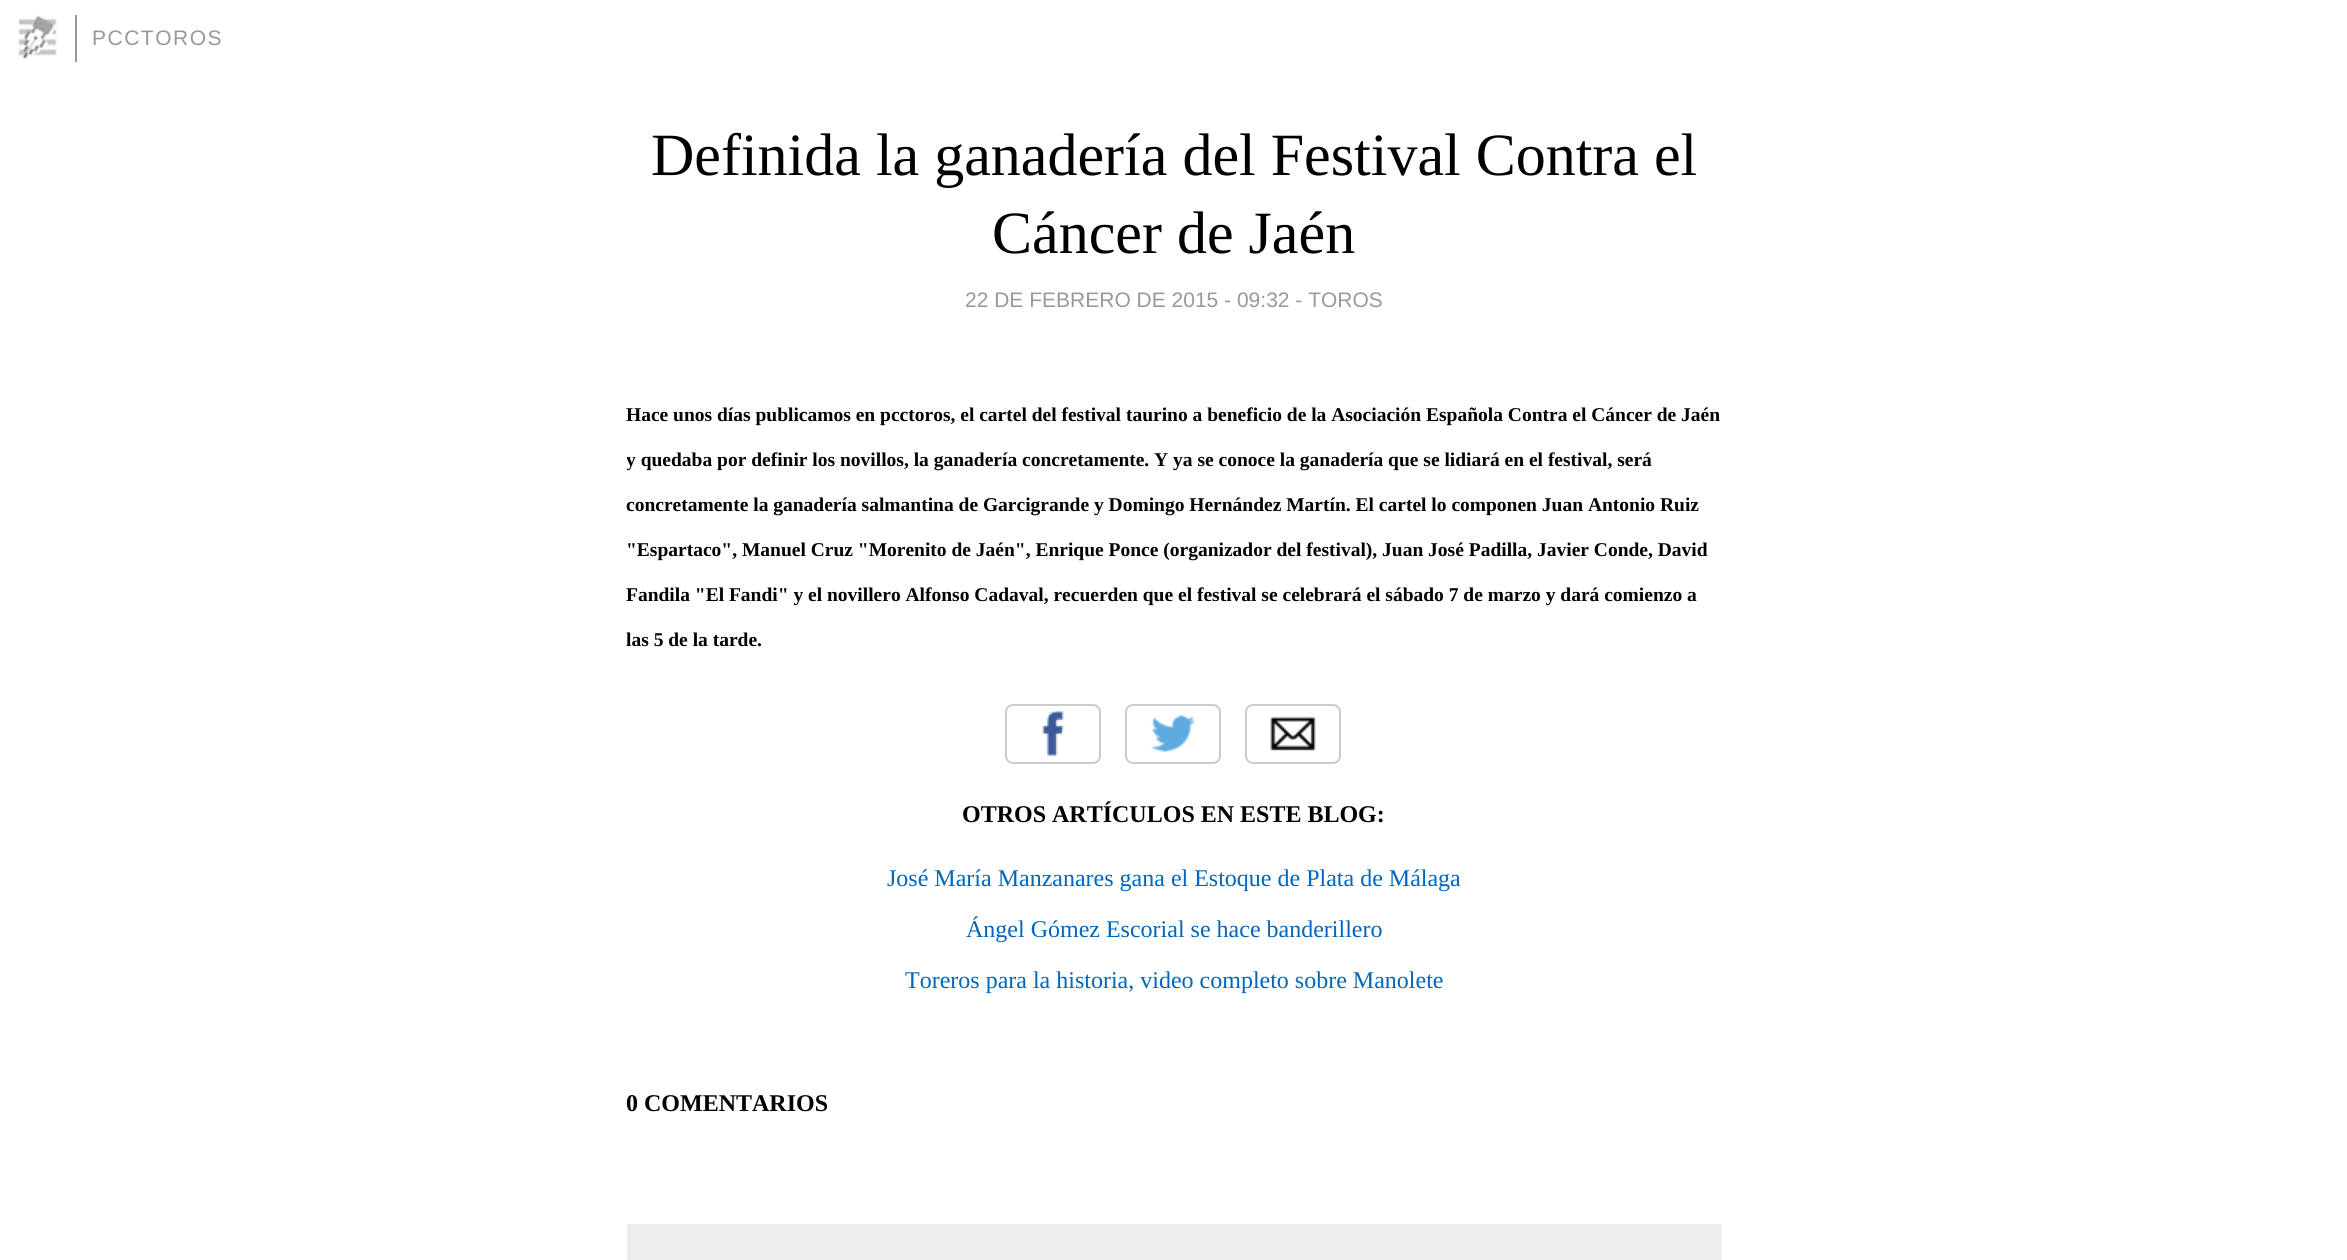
import math
import cairo


def use_color(cr, r, g, b):
  cr.set_source_rgb(r / 255, g / 255, b / 255)

def text(cr, x, y, s, family, size, color, bold=False, italic=False):
  cr.select_font_face(family, cairo.FONT_SLANT_ITALIC if italic else cairo.FONT_SLANT_NORMAL, cairo.FONT_WEIGHT_BOLD if bold else cairo.FONT_WEIGHT_NORMAL)
  cr.set_font_size(size)
  use_color(cr, *color)
  cr.move_to(x, y)
  cr.show_text(s)

def spaced_text(cr, x, y, s, letter, word):
  cr.move_to(x, y)
  for ch in s:
    cr.show_text(ch)
    cr.rel_move_to(letter + word * (ch == ' '), 0)

def box(cr, x, y, w, h, *color):
  use_color(cr, *color)
  cr.rectangle(x, y, w, h)
  cr.fill()

def round_rect(cr, x, y, w, h, r):
  cr.new_sub_path()
  for i, (u, v) in enumerate([(x + w - r, y + h - r), (x + r, y + h - r), (x + r, y + r), (x + w - r, y + r)]):
    cr.arc(u, v, r, i * math.pi / 2, (i + 1) * math.pi / 2)
  cr.close_path()

def picture(cr, path, x, y, w, h):
  cr.save()
  cr.set_source_surface(cairo.ImageSurface.create_from_png(path), x, y)
  cr.rectangle(x, y, w, h)
  cr.fill()
  cr.restore()

def draw(cr):
  use_color(cr, 255, 255, 255)
  cr.paint()
  picture(cr, "img_01.png", 18, 15, 39, 44)
  box(cr, 75, 15, 2, 47, 153, 153, 153)
  picture(cr, "img_02.png", 1042, 711, 22, 45)
  round_rect(cr, 1006, 705, 94, 58, 7)
  use_color(cr, 204, 204, 204)
  cr.stroke()
  picture(cr, "img_03.png", 1150, 715, 46, 37)
  round_rect(cr, 1126, 705, 94, 58, 7)
  cr.stroke()
  picture(cr, "img_04.png", 1270, 716, 46, 35)
  round_rect(cr, 1246, 705, 94, 58, 7)
  cr.stroke()
  box(cr, 627, 1224, 1095, 36, 238, 238, 238)
  cr.select_font_face("Liberation Sans")
  cr.set_font_size(21)
  use_color(cr, 153, 153, 153)
  spaced_text(cr, 92, 45, "PCCTOROS", 1.5, 0)
  text(cr, 651, 175, "Definida la ganadería del Festival Contra el", "Liberation Serif", 60, (0, 0, 0))
  text(cr, 992, 253, "Cáncer de Jaén", "Liberation Serif", 60, (0, 0, 0))
  text(cr, 965, 307, "22 DE FEBRERO DE 2015 - 09:32 - TOROS", "Liberation Sans", 21, (153, 153, 153))
  text(cr, 626, 421, "Hace unos días publicamos en pcctoros, el cartel del festival taurino a beneficio de la Asociación Española Contra el Cáncer de Jaén", "Liberation Serif", 19.5, (0, 0, 0), bold=True)
  cr.save()
  cr.rectangle(627, 77, 1095, 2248)
  cr.clip()
  text(cr, 626, 466, "y quedaba por definir los novillos, la ganadería concretamente. Y ya se conoce la ganadería que se lidiará en el festival, será", "Liberation Serif", 19.5, (0, 0, 0), bold=True)
  cr.restore()
  text(cr, 626, 511, "concretamente la ganadería salmantina de Garcigrande y Domingo Hernández Martín. El cartel lo componen Juan Antonio Ruiz", "Liberation Serif", 19.5, (0, 0, 0), bold=True)
  text(cr, 626, 556, "\"Espartaco\", Manuel Cruz \"Morenito de Jaén\", Enrique Ponce (organizador del festival), Juan José Padilla, Javier Conde, David", "Liberation Serif", 19.5, (0, 0, 0), bold=True)
  text(cr, 626, 601, "Fandila \"El Fandi\" y el novillero Alfonso Cadaval, recuerden que el festival se celebrará el sábado 7 de marzo y dará comienzo a", "Liberation Serif", 19.5, (0, 0, 0), bold=True)
  text(cr, 626, 646, "las 5 de la tarde.", "Liberation Serif", 19.5, (0, 0, 0), bold=True)
  text(cr, 962, 822, "OTROS ARTÍCULOS EN ESTE BLOG:", "Liberation Serif", 24, (0, 0, 0), bold=True)
  text(cr, 887, 886, "José María Manzanares gana el Estoque de Plata de Málaga", "Liberation Serif", 24, (0, 102, 187))
  text(cr, 966, 937, "Ángel Gómez Escorial se hace banderillero", "Liberation Serif", 24, (0, 102, 187))
  text(cr, 905, 988, "Toreros para la historia, video completo sobre Manolete", "Liberation Serif", 24, (0, 102, 187))
  text(cr, 626, 1111, "0 COMENTARIOS", "Liberation Serif", 24, (0, 0, 0), bold=True)


surface = cairo.ImageSurface(cairo.FORMAT_RGB24, 2347, 1260)
cr = cairo.Context(surface)
options = cairo.FontOptions()
options.set_hint_metrics(cairo.HINT_METRICS_OFF)
options.set_hint_style(cairo.HINT_STYLE_NONE)
cr.set_font_options(options)
cr.set_miter_limit(4)
draw(cr)
surface.write_to_png("out.png")
